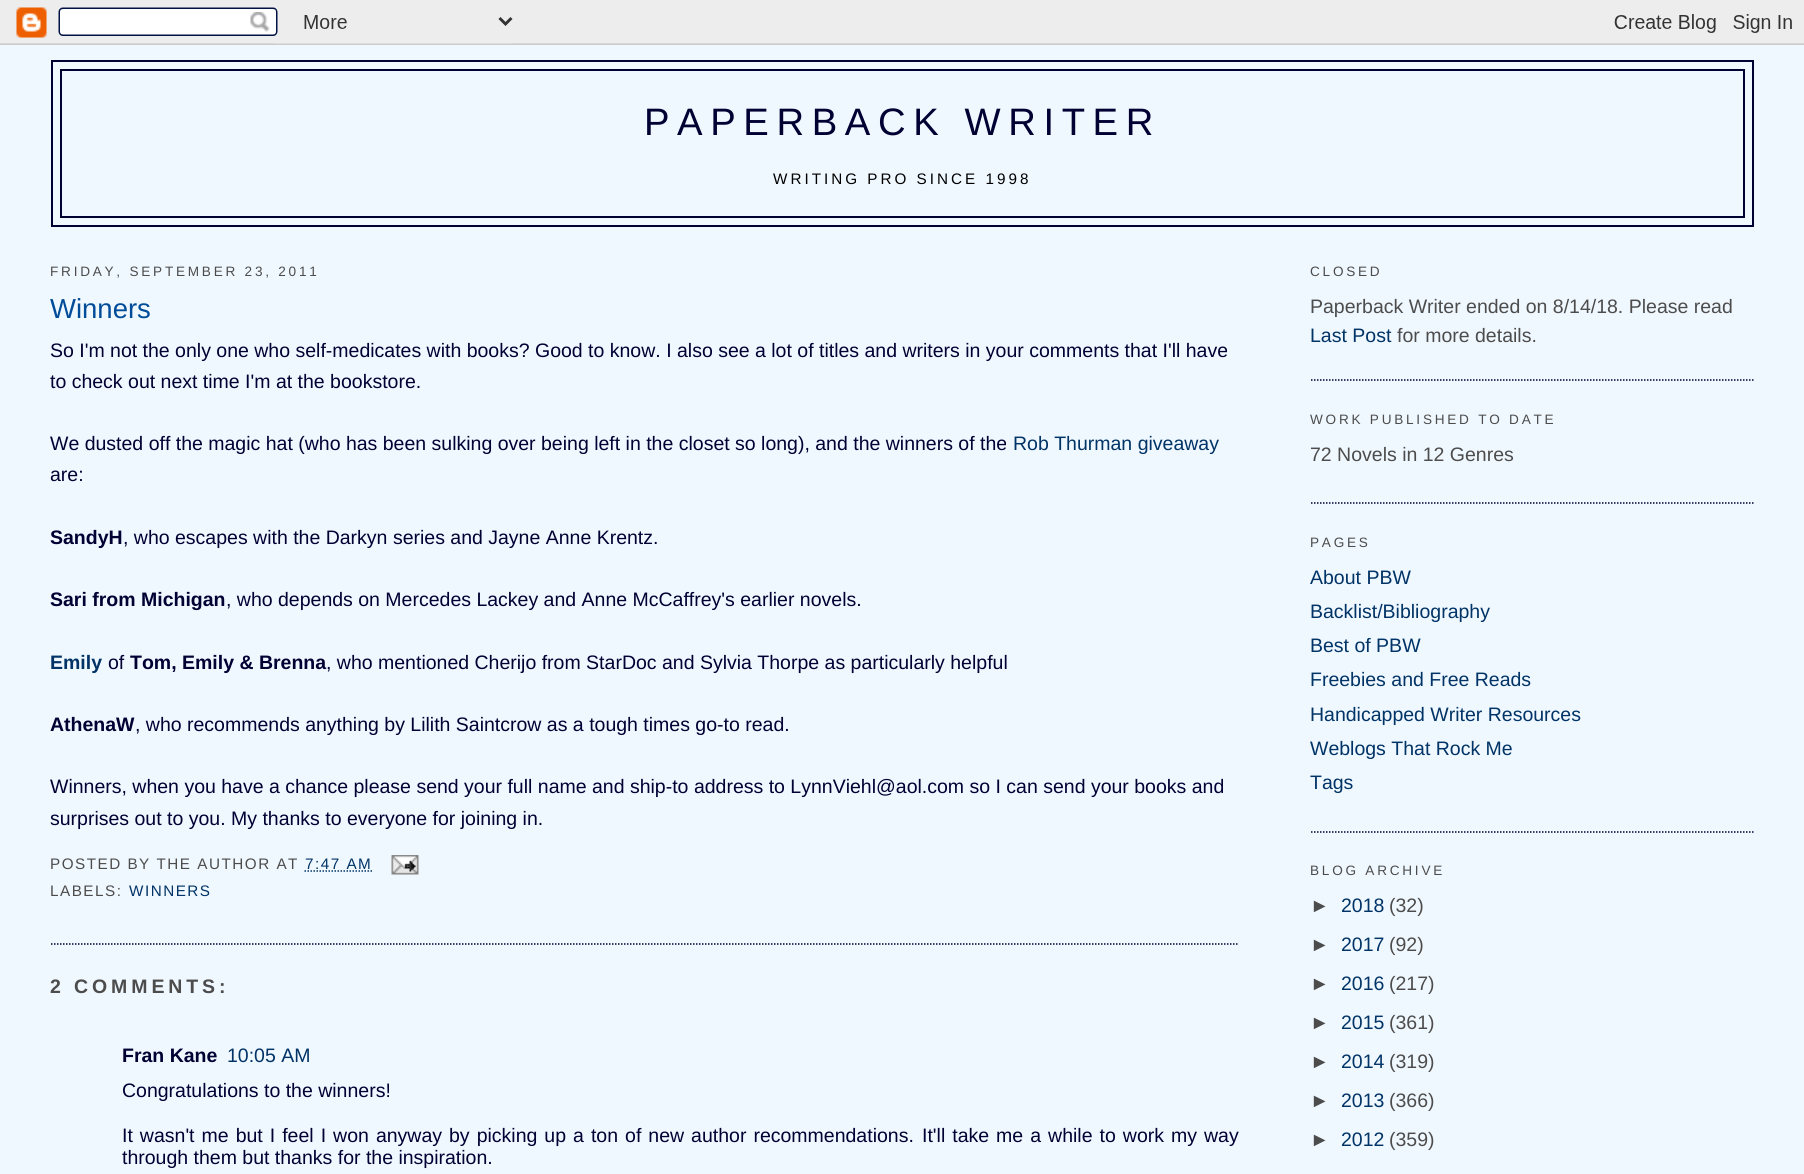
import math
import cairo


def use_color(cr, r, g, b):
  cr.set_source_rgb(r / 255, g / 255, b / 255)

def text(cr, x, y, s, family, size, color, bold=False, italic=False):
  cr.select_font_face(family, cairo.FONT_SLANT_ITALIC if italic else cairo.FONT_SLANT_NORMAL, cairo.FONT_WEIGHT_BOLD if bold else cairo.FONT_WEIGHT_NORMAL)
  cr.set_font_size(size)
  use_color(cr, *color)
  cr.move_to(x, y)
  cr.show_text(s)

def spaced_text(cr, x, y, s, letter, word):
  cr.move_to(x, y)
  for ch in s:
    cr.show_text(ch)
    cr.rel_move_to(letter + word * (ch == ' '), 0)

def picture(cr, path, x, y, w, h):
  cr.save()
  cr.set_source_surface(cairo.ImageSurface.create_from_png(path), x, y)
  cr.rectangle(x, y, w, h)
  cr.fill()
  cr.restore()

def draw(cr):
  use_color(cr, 240, 248, 255)
  cr.paint()
  picture(cr, "img_01.png", 0, 0, 1804, 45)
  cr.rectangle(52, 61, 1701, 165)
  use_color(cr, 0, 0, 51)
  cr.stroke()
  cr.rectangle(61, 70, 1683, 147)
  cr.stroke()
  cr.new_path()
  cr.move_to(51, 944)
  cr.line_to(1239, 944)
  cr.set_line_width(1.5)
  cr.set_dash([1.5, 1.5])
  cr.stroke()
  cr.new_path()
  cr.move_to(304.5, 871)
  cr.line_to(372, 871)
  use_color(cr, 0, 51, 102)
  cr.stroke()
  picture(cr, "img_02.png", 391, 855, 28, 20)
  cr.new_path()
  cr.move_to(1311, 380)
  cr.line_to(1753.5, 380)
  use_color(cr, 0, 0, 51)
  cr.stroke()
  cr.new_path()
  cr.move_to(1311, 503)
  cr.line_to(1753.5, 503)
  cr.stroke()
  cr.new_path()
  cr.move_to(1311, 832)
  cr.line_to(1753.5, 832)
  cr.stroke()
  cr.select_font_face("Liberation Sans")
  cr.set_font_size(38.25)
  spaced_text(cr, 644, 135, "PAPERBACK WRITER", 7.6, 0)
  cr.set_font_size(15.25)
  use_color(cr, 0, 0, 0)
  spaced_text(cr, 773, 184, "WRITING PRO SINCE 1998", 3, 0)
  cr.set_font_size(13.6)
  use_color(cr, 76, 76, 76)
  spaced_text(cr, 50, 276, "FRIDAY, SEPTEMBER 23, 2011", 2.75, 0)
  text(cr, 50, 318, "Winners", "Liberation Sans", 27.5, (0, 76, 153))
  text(cr, 50, 357, "So I'm not the only one who self-medicates with books? Good to know. I also see a lot of titles and writers in your comments that I'll have", "Liberation Sans", 19.5, (0, 0, 51))
  text(cr, 50, 388, "to check out next time I'm at the bookstore.", "Liberation Sans", 19.5, (0, 0, 51))
  text(cr, 50, 450, "We dusted off the magic hat (who has been sulking over being left in the closet so long), and the winners of the", "Liberation Sans", 19.5, (0, 0, 51))
  text(cr, 1013, 450, "Rob Thurman giveaway", "Liberation Sans", 19.5, (0, 51, 102))
  text(cr, 50, 481, "are:", "Liberation Sans", 19.5, (0, 0, 51))
  text(cr, 50, 544, "SandyH", "Liberation Sans", 19.5, (0, 0, 51), bold=True)
  text(cr, 123, 544, ", who escapes with the Darkyn series and Jayne Anne Krentz.", "Liberation Sans", 19.5, (0, 0, 51))
  text(cr, 50, 606, "Sari from Michigan", "Liberation Sans", 19.5, (0, 0, 51), bold=True)
  text(cr, 226, 606, ", who depends on Mercedes Lackey and Anne McCaffrey's earlier novels.", "Liberation Sans", 19.5, (0, 0, 51))
  text(cr, 50, 669, "Emily", "Liberation Sans", 19.5, (0, 51, 102), bold=True)
  text(cr, 108, 669, "of", "Liberation Sans", 19.5, (0, 0, 51))
  text(cr, 130, 669, "Tom, Emily & Brenna", "Liberation Sans", 19.5, (0, 0, 51), bold=True)
  text(cr, 326, 669, ", who mentioned Cherijo from StarDoc and Sylvia Thorpe as particularly helpful", "Liberation Sans", 19.5, (0, 0, 51))
  text(cr, 50, 731, "AthenaW", "Liberation Sans", 19.5, (0, 0, 51), bold=True)
  text(cr, 135, 731, ", who recommends anything by Lilith Saintcrow as a tough times go-to read.", "Liberation Sans", 19.5, (0, 0, 51))
  text(cr, 50, 793, "Winners, when you have a chance please send your full name and ship-to address to LynnViehl@aol.com so I can send your books and", "Liberation Sans", 19.5, (0, 0, 51))
  text(cr, 50, 825, "surprises out to you. My thanks to everyone for joining in.", "Liberation Sans", 19.5, (0, 0, 51))
  cr.set_font_size(15.25)
  use_color(cr, 76, 76, 76)
  spaced_text(cr, 50, 869, "POSTED BY THE AUTHOR AT", 1.5, 0)
  use_color(cr, 0, 51, 102)
  spaced_text(cr, 305, 869, "7:47 AM", 1.5, 0)
  use_color(cr, 76, 76, 76)
  spaced_text(cr, 50, 896, "LABELS:", 1.5, 0)
  use_color(cr, 0, 51, 102)
  spaced_text(cr, 129, 896, "WINNERS", 1.5, 0)
  cr.select_font_face("Liberation Sans", cairo.FONT_SLANT_NORMAL, cairo.FONT_WEIGHT_BOLD)
  cr.set_font_size(19.5)
  use_color(cr, 76, 76, 76)
  spaced_text(cr, 50, 993, "2 COMMENTS:", 3.9, 0)
  text(cr, 122, 1062, "Fran Kane", "Liberation Sans", 19.5, (0, 0, 51), bold=True)
  text(cr, 227, 1062, "10:05 AM", "Liberation Sans", 19.5, (0, 51, 102))
  text(cr, 122, 1097, "Congratulations to the winners!", "Liberation Sans", 19.5, (0, 0, 51))
  spaced_text(cr, 122, 1142, "It wasn't me but I feel I won anyway by picking up a ton of new author recommendations.", 0, 1.6)
  spaced_text(cr, 922, 1142, "It'll take me a while to work my way", 0, 1.6)
  text(cr, 122, 1164, "through them but thanks for the inspiration.", "Liberation Sans", 19.5, (0, 0, 51))
  cr.set_font_size(13.6)
  use_color(cr, 76, 76, 76)
  spaced_text(cr, 1310, 276, "CLOSED", 2.75, 0)
  text(cr, 1310, 313, "Paperback Writer ended on 8/14/18. Please read", "Liberation Sans", 19.5, (76, 76, 76))
  text(cr, 1310, 342, "Last Post", "Liberation Sans", 19.5, (0, 51, 102))
  text(cr, 1397, 342, "for more details.", "Liberation Sans", 19.5, (76, 76, 76))
  cr.set_font_size(13.6)
  spaced_text(cr, 1310, 424, "WORK PUBLISHED TO DATE", 2.75, 0)
  text(cr, 1310, 461, "72 Novels in 12 Genres", "Liberation Sans", 19.5, (76, 76, 76))
  cr.set_font_size(13.6)
  spaced_text(cr, 1310, 547, "PAGES", 2.75, 0)
  text(cr, 1310, 584, "About PBW", "Liberation Sans", 19.5, (0, 51, 102))
  text(cr, 1310, 618, "Backlist/Bibliography", "Liberation Sans", 19.5, (0, 51, 102))
  text(cr, 1310, 652, "Best of PBW", "Liberation Sans", 19.5, (0, 51, 102))
  text(cr, 1310, 686, "Freebies and Free Reads", "Liberation Sans", 19.5, (0, 51, 102))
  text(cr, 1310, 721, "Handicapped Writer Resources", "Liberation Sans", 19.5, (0, 51, 102))
  text(cr, 1310, 755, "Weblogs That Rock Me", "Liberation Sans", 19.5, (0, 51, 102))
  text(cr, 1310, 789, "Tags", "Liberation Sans", 19.5, (0, 51, 102))
  cr.set_font_size(13.6)
  use_color(cr, 76, 76, 76)
  spaced_text(cr, 1310, 875, "BLOG ARCHIVE", 2.75, 0)
  text(cr, 1310, 912, "►", "Liberation Sans", 19.5, (76, 76, 76))
  text(cr, 1341, 912, "2018", "Liberation Sans", 19.5, (0, 51, 102))
  text(cr, 1389, 912, "(32)", "Liberation Sans", 19.5, (76, 76, 76))
  text(cr, 1310, 951, "►", "Liberation Sans", 19.5, (76, 76, 76))
  text(cr, 1341, 951, "2017", "Liberation Sans", 19.5, (0, 51, 102))
  text(cr, 1389, 951, "(92)", "Liberation Sans", 19.5, (76, 76, 76))
  text(cr, 1310, 990, "►", "Liberation Sans", 19.5, (76, 76, 76))
  text(cr, 1341, 990, "2016", "Liberation Sans", 19.5, (0, 51, 102))
  text(cr, 1389, 990, "(217)", "Liberation Sans", 19.5, (76, 76, 76))
  text(cr, 1310, 1029, "►", "Liberation Sans", 19.5, (76, 76, 76))
  text(cr, 1341, 1029, "2015", "Liberation Sans", 19.5, (0, 51, 102))
  text(cr, 1389, 1029, "(361)", "Liberation Sans", 19.5, (76, 76, 76))
  text(cr, 1310, 1068, "►", "Liberation Sans", 19.5, (76, 76, 76))
  text(cr, 1341, 1068, "2014", "Liberation Sans", 19.5, (0, 51, 102))
  text(cr, 1389, 1068, "(319)", "Liberation Sans", 19.5, (76, 76, 76))
  text(cr, 1310, 1107, "►", "Liberation Sans", 19.5, (76, 76, 76))
  text(cr, 1341, 1107, "2013", "Liberation Sans", 19.5, (0, 51, 102))
  text(cr, 1389, 1107, "(366)", "Liberation Sans", 19.5, (76, 76, 76))
  text(cr, 1310, 1146, "►", "Liberation Sans", 19.5, (76, 76, 76))
  text(cr, 1341, 1146, "2012", "Liberation Sans", 19.5, (0, 51, 102))
  text(cr, 1389, 1146, "(359)", "Liberation Sans", 19.5, (76, 76, 76))


surface = cairo.ImageSurface(cairo.FORMAT_RGB24, 1804, 1174)
cr = cairo.Context(surface)
options = cairo.FontOptions()
options.set_hint_metrics(cairo.HINT_METRICS_OFF)
options.set_hint_style(cairo.HINT_STYLE_NONE)
cr.set_font_options(options)
cr.set_miter_limit(4)
draw(cr)
surface.write_to_png("out.png")
